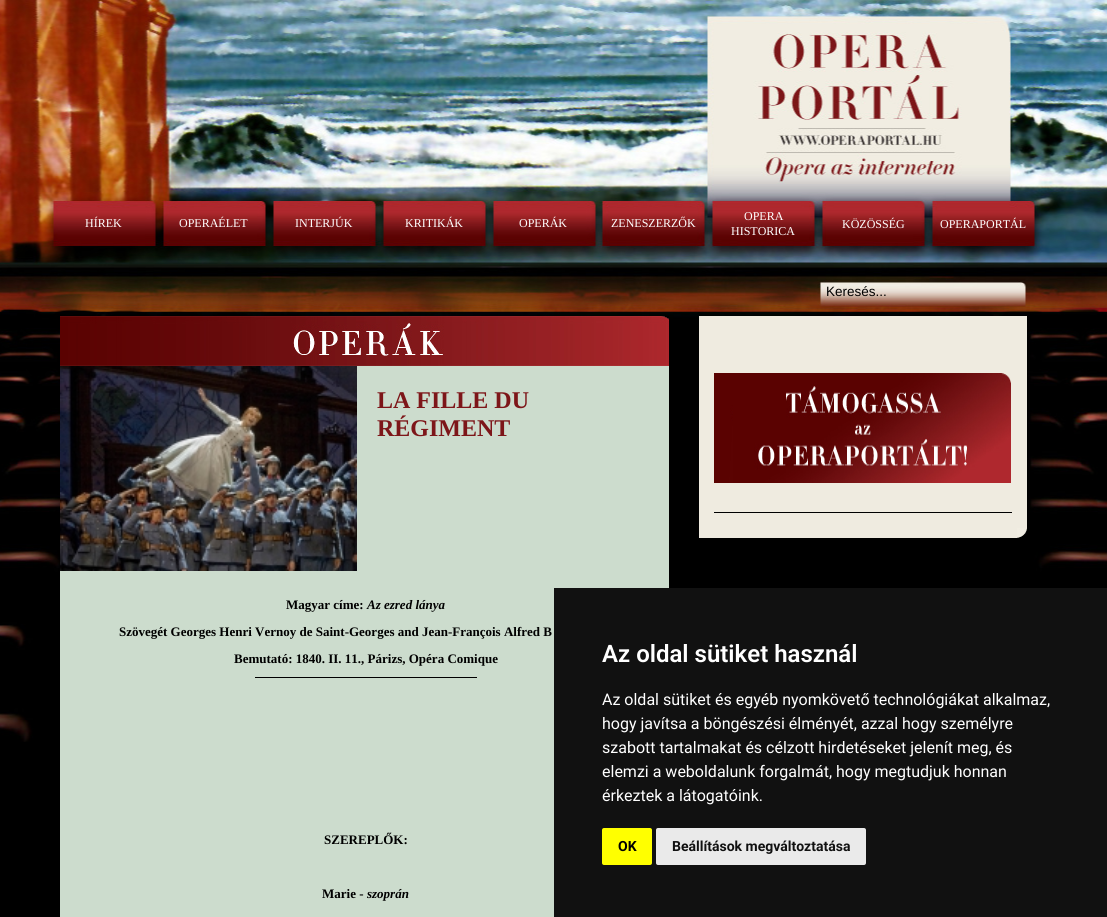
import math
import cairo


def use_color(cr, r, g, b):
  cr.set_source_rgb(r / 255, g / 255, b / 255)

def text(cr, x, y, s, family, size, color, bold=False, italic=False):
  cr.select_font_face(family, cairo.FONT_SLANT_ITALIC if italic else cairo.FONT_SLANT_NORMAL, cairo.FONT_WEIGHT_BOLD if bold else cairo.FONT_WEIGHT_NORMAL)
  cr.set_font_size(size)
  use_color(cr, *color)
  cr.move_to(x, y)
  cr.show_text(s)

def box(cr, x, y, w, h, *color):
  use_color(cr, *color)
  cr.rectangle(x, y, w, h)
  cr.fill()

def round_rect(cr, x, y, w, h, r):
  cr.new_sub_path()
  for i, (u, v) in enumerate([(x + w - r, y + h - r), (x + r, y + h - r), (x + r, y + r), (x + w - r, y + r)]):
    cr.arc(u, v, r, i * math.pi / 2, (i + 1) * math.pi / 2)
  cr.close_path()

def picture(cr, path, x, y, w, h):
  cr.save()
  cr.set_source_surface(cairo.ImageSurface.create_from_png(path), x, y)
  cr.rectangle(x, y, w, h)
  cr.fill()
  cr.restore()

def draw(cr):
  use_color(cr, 0, 0, 0)
  cr.paint()
  picture(cr, "img_01.png", 0, 0, 1107, 742)
  box(cr, 60, 366, 609, 551, 204, 220, 205)
  picture(cr, "img_02.png", 60, 316, 609, 50)
  picture(cr, "img_03.png", 60, 366, 297, 205)
  box(cr, 255, 677, 222, 1, 0, 0, 0)
  box(cr, 699, 316, 328, 222, 239, 235, 224)
  picture(cr, "img_04.png", 1017, 528, 10, 10)
  picture(cr, "img_05.png", 714, 373, 19, 110)
  box(cr, 714, 512, 298, 1, 0, 0, 0)
  picture(cr, "img_06.png", 733, 373, 278, 110)
  box(cr, 554, 588, 553, 329, 17, 17, 17)
  use_color(cr, 255, 255, 0)
  round_rect(cr, 602, 828, 50, 37, 2)
  cr.fill()
  use_color(cr, 234, 234, 234)
  round_rect(cr, 656, 828, 210, 37, 2)
  cr.fill()
  text(cr, 85, 227, "HÍREK", "Liberation Serif", 12, (255, 255, 255))
  text(cr, 179, 227, "OPERAÉLET", "Liberation Serif", 12, (255, 255, 255))
  text(cr, 295, 227, "INTERJÚK", "Liberation Serif", 12, (255, 255, 255))
  text(cr, 405, 227, "KRITIKÁK", "Liberation Serif", 12, (255, 255, 255))
  text(cr, 519, 227, "OPERÁK", "Liberation Serif", 12, (255, 255, 255))
  text(cr, 611, 227, "ZENESZERZŐK", "Liberation Serif", 12, (255, 255, 255))
  text(cr, 744, 220, "OPERA", "Liberation Serif", 12, (255, 255, 255))
  text(cr, 731, 235, "HISTORICA", "Liberation Serif", 12, (255, 255, 255))
  text(cr, 842, 228, "KÖZÖSSÉG", "Liberation Serif", 12, (255, 255, 255))
  text(cr, 940, 228, "OPERAPORTÁL", "Liberation Serif", 12, (255, 255, 255))
  text(cr, 826, 296, "Keresés...", "Liberation Sans", 13.5, (0, 0, 0))
  text(cr, 377, 408, "LA FILLE DU", "Liberation Serif", 24, (125, 22, 25), bold=True)
  text(cr, 377, 436, "RÉGIMENT", "Liberation Serif", 24, (125, 22, 25), bold=True)
  text(cr, 286, 609, "Magyar címe:", "Liberation Serif", 13, (0, 0, 0), bold=True)
  text(cr, 367, 609, "Az ezred lánya", "Liberation Serif", 13, (0, 0, 0), bold=True, italic=True)
  text(cr, 119, 636, "Szövegét Georges Henri Vernoy de Saint-Georges and Jean-François Alfred B", "Liberation Serif", 13, (0, 0, 0), bold=True)
  text(cr, 234, 663, "Bemutató: 1840. II. 11., Párizs, Opéra Comique", "Liberation Serif", 13, (0, 0, 0), bold=True)
  text(cr, 324, 844, "SZEREPLŐK:", "Liberation Serif", 13, (0, 0, 0), bold=True)
  text(cr, 322, 898, "Marie -", "Liberation Serif", 13, (0, 0, 0), bold=True)
  text(cr, 367, 898, "szoprán", "Liberation Serif", 13, (0, 0, 0), bold=True, italic=True)
  text(cr, 602, 662, "Az oldal sütiket használ", "Roboto SemiBold", 24, (255, 255, 255))
  text(cr, 602, 705, "Az oldal sütiket és egyéb nyomkövető technológiákat alkalmaz,", "Roboto", 16, (255, 255, 255))
  text(cr, 602, 729, "hogy javítsa a böngészési élményét, azzal hogy személyre", "Roboto", 16, (255, 255, 255))
  text(cr, 602, 753, "szabott tartalmakat és célzott hirdetéseket jelenít meg, és", "Roboto", 16, (255, 255, 255))
  text(cr, 602, 777, "elemzi a weboldalunk forgalmát, hogy megtudjuk honnan", "Roboto", 16, (255, 255, 255))
  text(cr, 602, 801, "érkeztek a látogatóink.", "Roboto", 16, (255, 255, 255))
  text(cr, 618, 851, "OK", "Roboto", 14, (0, 0, 0), bold=True)
  text(cr, 672, 851, "Beállítások megváltoztatása", "Roboto", 14, (17, 17, 17), bold=True)


surface = cairo.ImageSurface(cairo.FORMAT_RGB24, 1107, 917)
cr = cairo.Context(surface)
options = cairo.FontOptions()
options.set_hint_metrics(cairo.HINT_METRICS_OFF)
options.set_hint_style(cairo.HINT_STYLE_NONE)
cr.set_font_options(options)
cr.set_miter_limit(4)
draw(cr)
surface.write_to_png("out.png")
